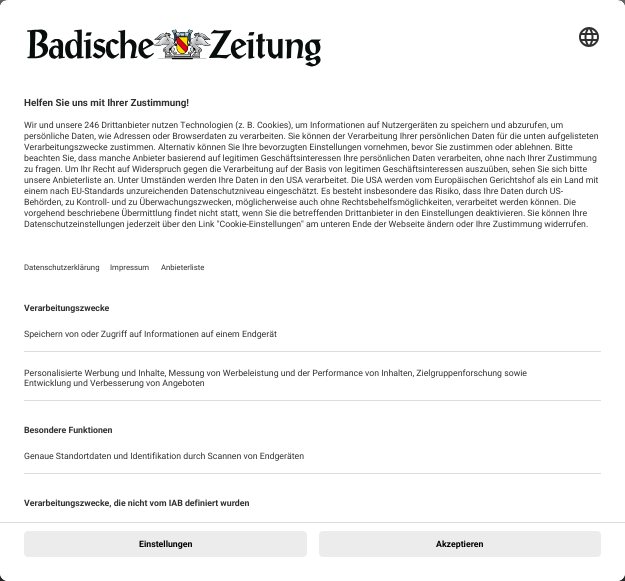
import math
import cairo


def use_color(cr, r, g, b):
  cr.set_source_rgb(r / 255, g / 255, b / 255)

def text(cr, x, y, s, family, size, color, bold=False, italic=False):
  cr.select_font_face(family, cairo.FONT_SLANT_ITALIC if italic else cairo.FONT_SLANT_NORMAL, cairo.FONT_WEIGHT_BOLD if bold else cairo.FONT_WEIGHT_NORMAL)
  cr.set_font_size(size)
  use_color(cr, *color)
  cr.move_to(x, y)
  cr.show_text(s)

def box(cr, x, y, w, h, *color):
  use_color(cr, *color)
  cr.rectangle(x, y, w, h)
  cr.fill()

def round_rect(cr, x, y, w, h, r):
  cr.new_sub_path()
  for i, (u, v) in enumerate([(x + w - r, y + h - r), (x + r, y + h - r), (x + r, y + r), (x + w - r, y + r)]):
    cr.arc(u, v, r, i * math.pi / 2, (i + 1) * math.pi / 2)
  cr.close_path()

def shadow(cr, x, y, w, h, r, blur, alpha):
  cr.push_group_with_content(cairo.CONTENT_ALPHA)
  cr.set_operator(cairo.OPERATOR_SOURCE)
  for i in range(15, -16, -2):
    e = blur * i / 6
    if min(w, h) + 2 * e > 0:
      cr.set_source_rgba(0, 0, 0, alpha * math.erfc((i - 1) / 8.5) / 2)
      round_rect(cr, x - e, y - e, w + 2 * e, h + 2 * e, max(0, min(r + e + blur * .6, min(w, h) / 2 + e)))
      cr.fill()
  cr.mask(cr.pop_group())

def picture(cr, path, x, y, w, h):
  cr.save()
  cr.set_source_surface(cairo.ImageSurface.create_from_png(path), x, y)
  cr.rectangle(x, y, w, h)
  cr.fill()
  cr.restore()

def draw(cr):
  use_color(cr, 51, 51, 51)
  cr.paint()
  box(cr, 0, 0, 625, 8, 107, 107, 107)
  use_color(cr, 0, 0, 0)
  shadow(cr, 0, 20, 625, 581, 8, 14, 0.3)
  shadow(cr, 0, 5, 625, 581, 8, 13, 0.22)
  use_color(cr, 255, 255, 255)
  round_rect(cr, 0, 0, 625, 581, 8)
  cr.fill()
  cr.save()
  round_rect(cr, 0, 0, 625, 581, 8)
  cr.clip()
  cr.new_path()
  cr.move_to(8, 0)
  cr.line_to(617, 0)
  cr.curve_to(621.5, 0, 625, 3.5, 625, 8)
  cr.line_to(625, 522)
  cr.line_to(0, 522)
  cr.line_to(0, 8)
  cr.curve_to(0, 3.5, 3.5, 0, 8, 0)
  cr.close_path()
  cr.clip()
  box(cr, 0, 1, 625, 521, 255, 255, 255)
  box(cr, 0, 1, 625, 290, 255, 255, 255)
  cr.restore()
  picture(cr, "img_01.png", 27, 29, 294, 38)
  picture(cr, "img_02.png", 579, 27, 20, 20)
  box(cr, 24, 351, 577, 1, 221, 221, 221)
  box(cr, 24, 400, 577, 1, 221, 221, 221)
  box(cr, 24, 473, 577, 1, 221, 221, 221)
  use_color(cr, 255, 255, 255)
  cr.new_path()
  cr.move_to(0, 522)
  cr.line_to(625, 522)
  cr.line_to(625, 573)
  cr.curve_to(625, 577.5, 621.5, 581, 617, 581)
  cr.line_to(8, 581)
  cr.curve_to(3.5, 581, 0, 577.5, 0, 573)
  cr.close_path()
  cr.fill()
  box(cr, 0, 522, 625, 1, 221, 221, 221)
  use_color(cr, 236, 236, 236)
  round_rect(cr, 24, 531, 283, 26, 4)
  cr.fill()
  round_rect(cr, 319, 531, 282, 26, 4)
  cr.fill()
  text(cr, 24, 106, "Helfen Sie uns mit Ihrer Zustimmung!", "Roboto", 9.8, (48, 48, 48), bold=True)
  text(cr, 24, 128, "Wir und unsere 246 Drittanbieter nutzen Technologien (z. B. Cookies), um Informationen auf Nutzergeräten zu speichern und abzurufen, um", "Roboto", 8.75, (48, 48, 48))
  text(cr, 24, 139, "persönliche Daten, wie Adressen oder Browserdaten zu verarbeiten. Sie können der Verarbeitung Ihrer persönlichen Daten für die unten aufgelisteten", "Roboto", 8.75, (48, 48, 48))
  text(cr, 24, 150, "Verarbeitungszwecke zustimmen. Alternativ können Sie Ihre bevorzugten Einstellungen vornehmen, bevor Sie zustimmen oder ablehnen. Bitte", "Roboto", 8.75, (48, 48, 48))
  text(cr, 24, 161, "beachten Sie, dass manche Anbieter basierend auf legitimen Geschäftsinteressen Ihre persönlichen Daten verarbeiten, ohne nach Ihrer Zustimmung", "Roboto", 8.75, (48, 48, 48))
  text(cr, 24, 172, "zu fragen. Um Ihr Recht auf Widerspruch gegen die Verarbeitung auf der Basis von legitimen Geschäftsinteressen auszuüben, sehen Sie sich bitte", "Roboto", 8.75, (48, 48, 48))
  text(cr, 24, 183, "unsere Anbieterliste an. Unter Umständen werden Ihre Daten in den USA verarbeitet. Die USA werden vom Europäischen Gerichtshof als ein Land mit", "Roboto", 8.75, (48, 48, 48))
  text(cr, 24, 194, "einem nach EU-Standards unzureichenden Datenschutzniveau eingeschätzt. Es besteht insbesondere das Risiko, dass Ihre Daten durch US-", "Roboto", 8.75, (48, 48, 48))
  text(cr, 24, 205, "Behörden, zu Kontroll- und zu Überwachungszwecken, möglicherweise auch ohne Rechtsbehelfsmöglichkeiten, verarbeitet werden können. Die", "Roboto", 8.75, (48, 48, 48))
  text(cr, 24, 216, "vorgehend beschriebene Übermittlung findet nicht statt, wenn Sie die betreffenden Drittanbieter in den Einstellungen deaktivieren. Sie können Ihre", "Roboto", 8.75, (48, 48, 48))
  text(cr, 24, 227, "Datenschutzeinstellungen jederzeit über den Link \"Cookie-Einstellungen\" am unteren Ende der Webseite ändern oder Ihre Zustimmung widerrufen.", "Roboto", 8.75, (48, 48, 48))
  text(cr, 24, 270, "Datenschutzerklärung", "Roboto", 7.75, (48, 48, 48))
  text(cr, 110, 270, "Impressum", "Roboto", 7.75, (48, 48, 48))
  text(cr, 161, 270, "Anbieterliste", "Roboto", 7.75, (48, 48, 48))
  text(cr, 24, 311, "Verarbeitungszwecke", "Roboto", 8.75, (48, 48, 48), bold=True)
  text(cr, 24, 337, "Speichern von oder Zugriff auf Informationen auf einem Endgerät", "Roboto", 8.75, (48, 48, 48))
  text(cr, 24, 376, "Personalisierte Werbung und Inhalte, Messung von Werbeleistung und der Performance von Inhalten, Zielgruppenforschung sowie", "Roboto", 8.75, (48, 48, 48))
  text(cr, 24, 386, "Entwicklung und Verbesserung von Angeboten", "Roboto", 8.75, (48, 48, 48))
  text(cr, 24, 433, "Besondere Funktionen", "Roboto", 8.75, (48, 48, 48), bold=True)
  text(cr, 24, 459, "Genaue Standortdaten und Identifikation durch Scannen von Endgeräten", "Roboto", 8.75, (48, 48, 48))
  text(cr, 24, 506, "Verarbeitungszwecke, die nicht vom IAB definiert wurden", "Roboto", 8.75, (48, 48, 48), bold=True)
  text(cr, 139, 547, "Einstellungen", "Roboto", 8.75, (0, 0, 0), bold=True)
  text(cr, 436, 547, "Akzeptieren", "Roboto", 8.75, (0, 0, 0), bold=True)


surface = cairo.ImageSurface(cairo.FORMAT_RGB24, 625, 581)
cr = cairo.Context(surface)
options = cairo.FontOptions()
options.set_hint_metrics(cairo.HINT_METRICS_OFF)
options.set_hint_style(cairo.HINT_STYLE_NONE)
cr.set_font_options(options)
cr.set_miter_limit(4)
draw(cr)
surface.write_to_png("out.png")
